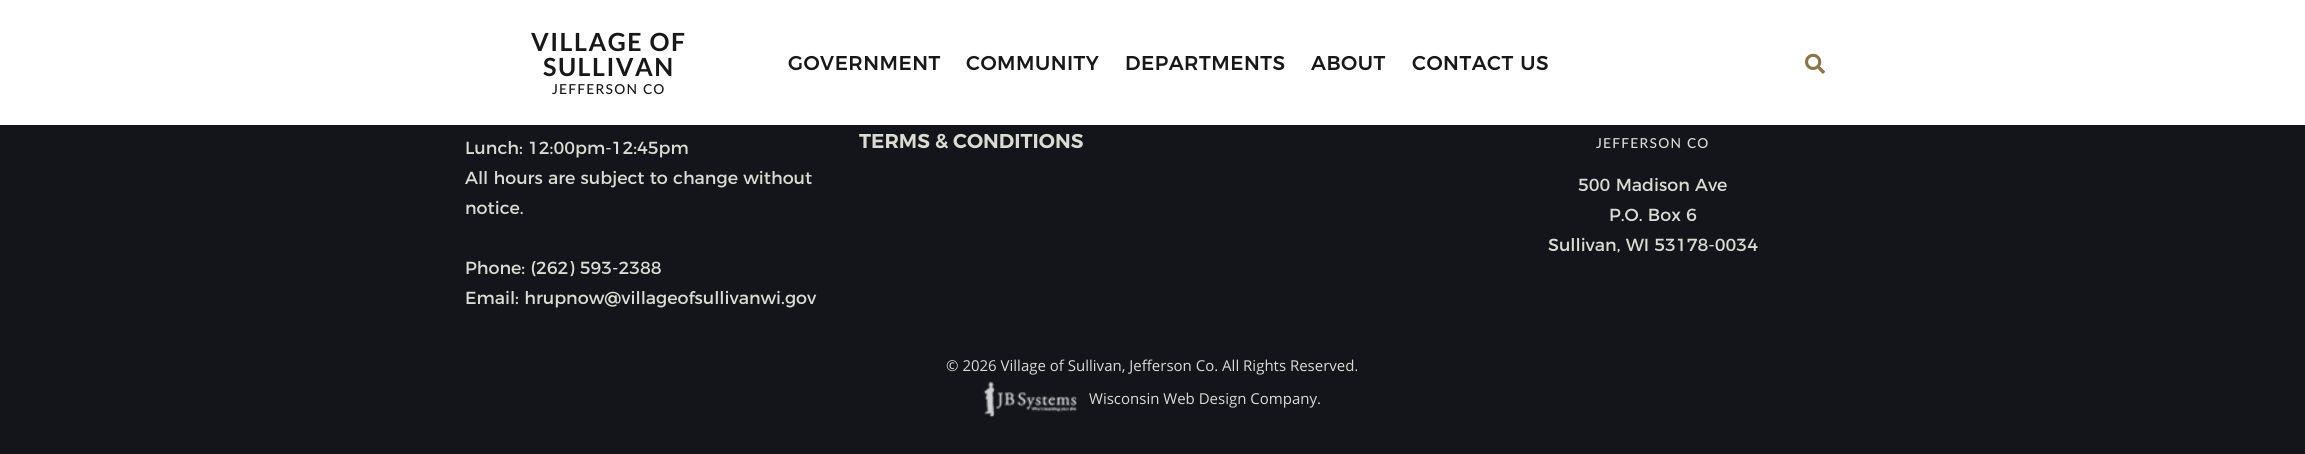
import math
import cairo


def use_color(cr, r, g, b):
  cr.set_source_rgb(r / 255, g / 255, b / 255)

def text(cr, x, y, s, family, size, color, bold=False, italic=False):
  cr.select_font_face(family, cairo.FONT_SLANT_ITALIC if italic else cairo.FONT_SLANT_NORMAL, cairo.FONT_WEIGHT_BOLD if bold else cairo.FONT_WEIGHT_NORMAL)
  cr.set_font_size(size)
  use_color(cr, *color)
  cr.move_to(x, y)
  cr.show_text(s)

def spaced_text(cr, x, y, s, letter, word):
  cr.move_to(x, y)
  for ch in s:
    cr.show_text(ch)
    cr.rel_move_to(letter + word * (ch == ' '), 0)

def box(cr, x, y, w, h, *color):
  use_color(cr, *color)
  cr.rectangle(x, y, w, h)
  cr.fill()

def picture(cr, path, x, y, w, h):
  cr.save()
  cr.set_source_surface(cairo.ImageSurface.create_from_png(path), x, y)
  cr.rectangle(x, y, w, h)
  cr.fill()
  cr.restore()

def draw(cr):
  use_color(cr, 19, 21, 26)
  cr.paint()
  box(cr, 0, 0, 2305, 125, 255, 255, 255)
  picture(cr, "img_01.png", 1805, 53, 20, 21)
  picture(cr, "img_02.png", 983, 381, 94, 37)
  cr.select_font_face("Lato", cairo.FONT_SLANT_NORMAL, cairo.FONT_WEIGHT_BOLD)
  cr.set_font_size(25)
  use_color(cr, 24, 24, 24)
  spaced_text(cr, 531, 51, "VILLAGE OF", 1.5, 0)
  spaced_text(cr, 543, 76, "SULLIVAN", 1.5, 0)
  cr.select_font_face("Lato Medium")
  cr.set_font_size(13.75)
  spaced_text(cr, 552, 94, "JEFFERSON CO", 1.25, 0)
  cr.select_font_face("Montserrat Medium")
  cr.set_font_size(20)
  spaced_text(cr, 788, 70, "GOVERNMENT", 0.5, 0)
  spaced_text(cr, 966, 70, "COMMUNITY", 0.5, 0)
  spaced_text(cr, 1125, 70, "DEPARTMENTS", 0.5, 0)
  spaced_text(cr, 1311, 70, "ABOUT", 0.5, 0)
  spaced_text(cr, 1412, 70, "CONTACT US", 0.5, 0)
  text(cr, 465, 154, "Lunch: 12:00pm-12:45pm", "Montserrat", 17.5, (219, 219, 212))
  text(cr, 465, 184, "All hours are subject to change without", "Montserrat", 17.5, (219, 219, 212))
  text(cr, 465, 214, "notice.", "Montserrat", 17.5, (219, 219, 212))
  text(cr, 465, 274, "Phone: (262) 593-2388", "Montserrat", 17.5, (219, 219, 212))
  text(cr, 465, 304, "Email: hrupnow@villageofsullivanwi.gov", "Montserrat", 17.5, (219, 219, 212))
  text(cr, 859, 148, "TERMS & CONDITIONS", "Montserrat SemiBold", 20, (219, 219, 212))
  cr.select_font_face("Lato Medium")
  cr.set_font_size(13.75)
  spaced_text(cr, 1596, 148, "JEFFERSON CO", 1.25, 0)
  text(cr, 1578, 191, "500 Madison Ave", "Montserrat", 17.5, (219, 219, 212))
  text(cr, 1609, 221, "P.O. Box 6", "Montserrat", 17.5, (219, 219, 212))
  text(cr, 1548, 251, "Sullivan, WI 53178-0034", "Montserrat", 17.5, (219, 219, 212))
  text(cr, 946, 371, "© 2026 Village of Sullivan, Jefferson Co. All Rights Reserved.", "Open Sans", 15, (219, 219, 212))
  text(cr, 1089, 404, "Wisconsin Web Design Company.", "Open Sans", 15, (219, 219, 212))


surface = cairo.ImageSurface(cairo.FORMAT_RGB24, 2305, 454)
cr = cairo.Context(surface)
options = cairo.FontOptions()
options.set_hint_metrics(cairo.HINT_METRICS_OFF)
options.set_hint_style(cairo.HINT_STYLE_NONE)
cr.set_font_options(options)
cr.set_miter_limit(4)
draw(cr)
surface.write_to_png("out.png")
